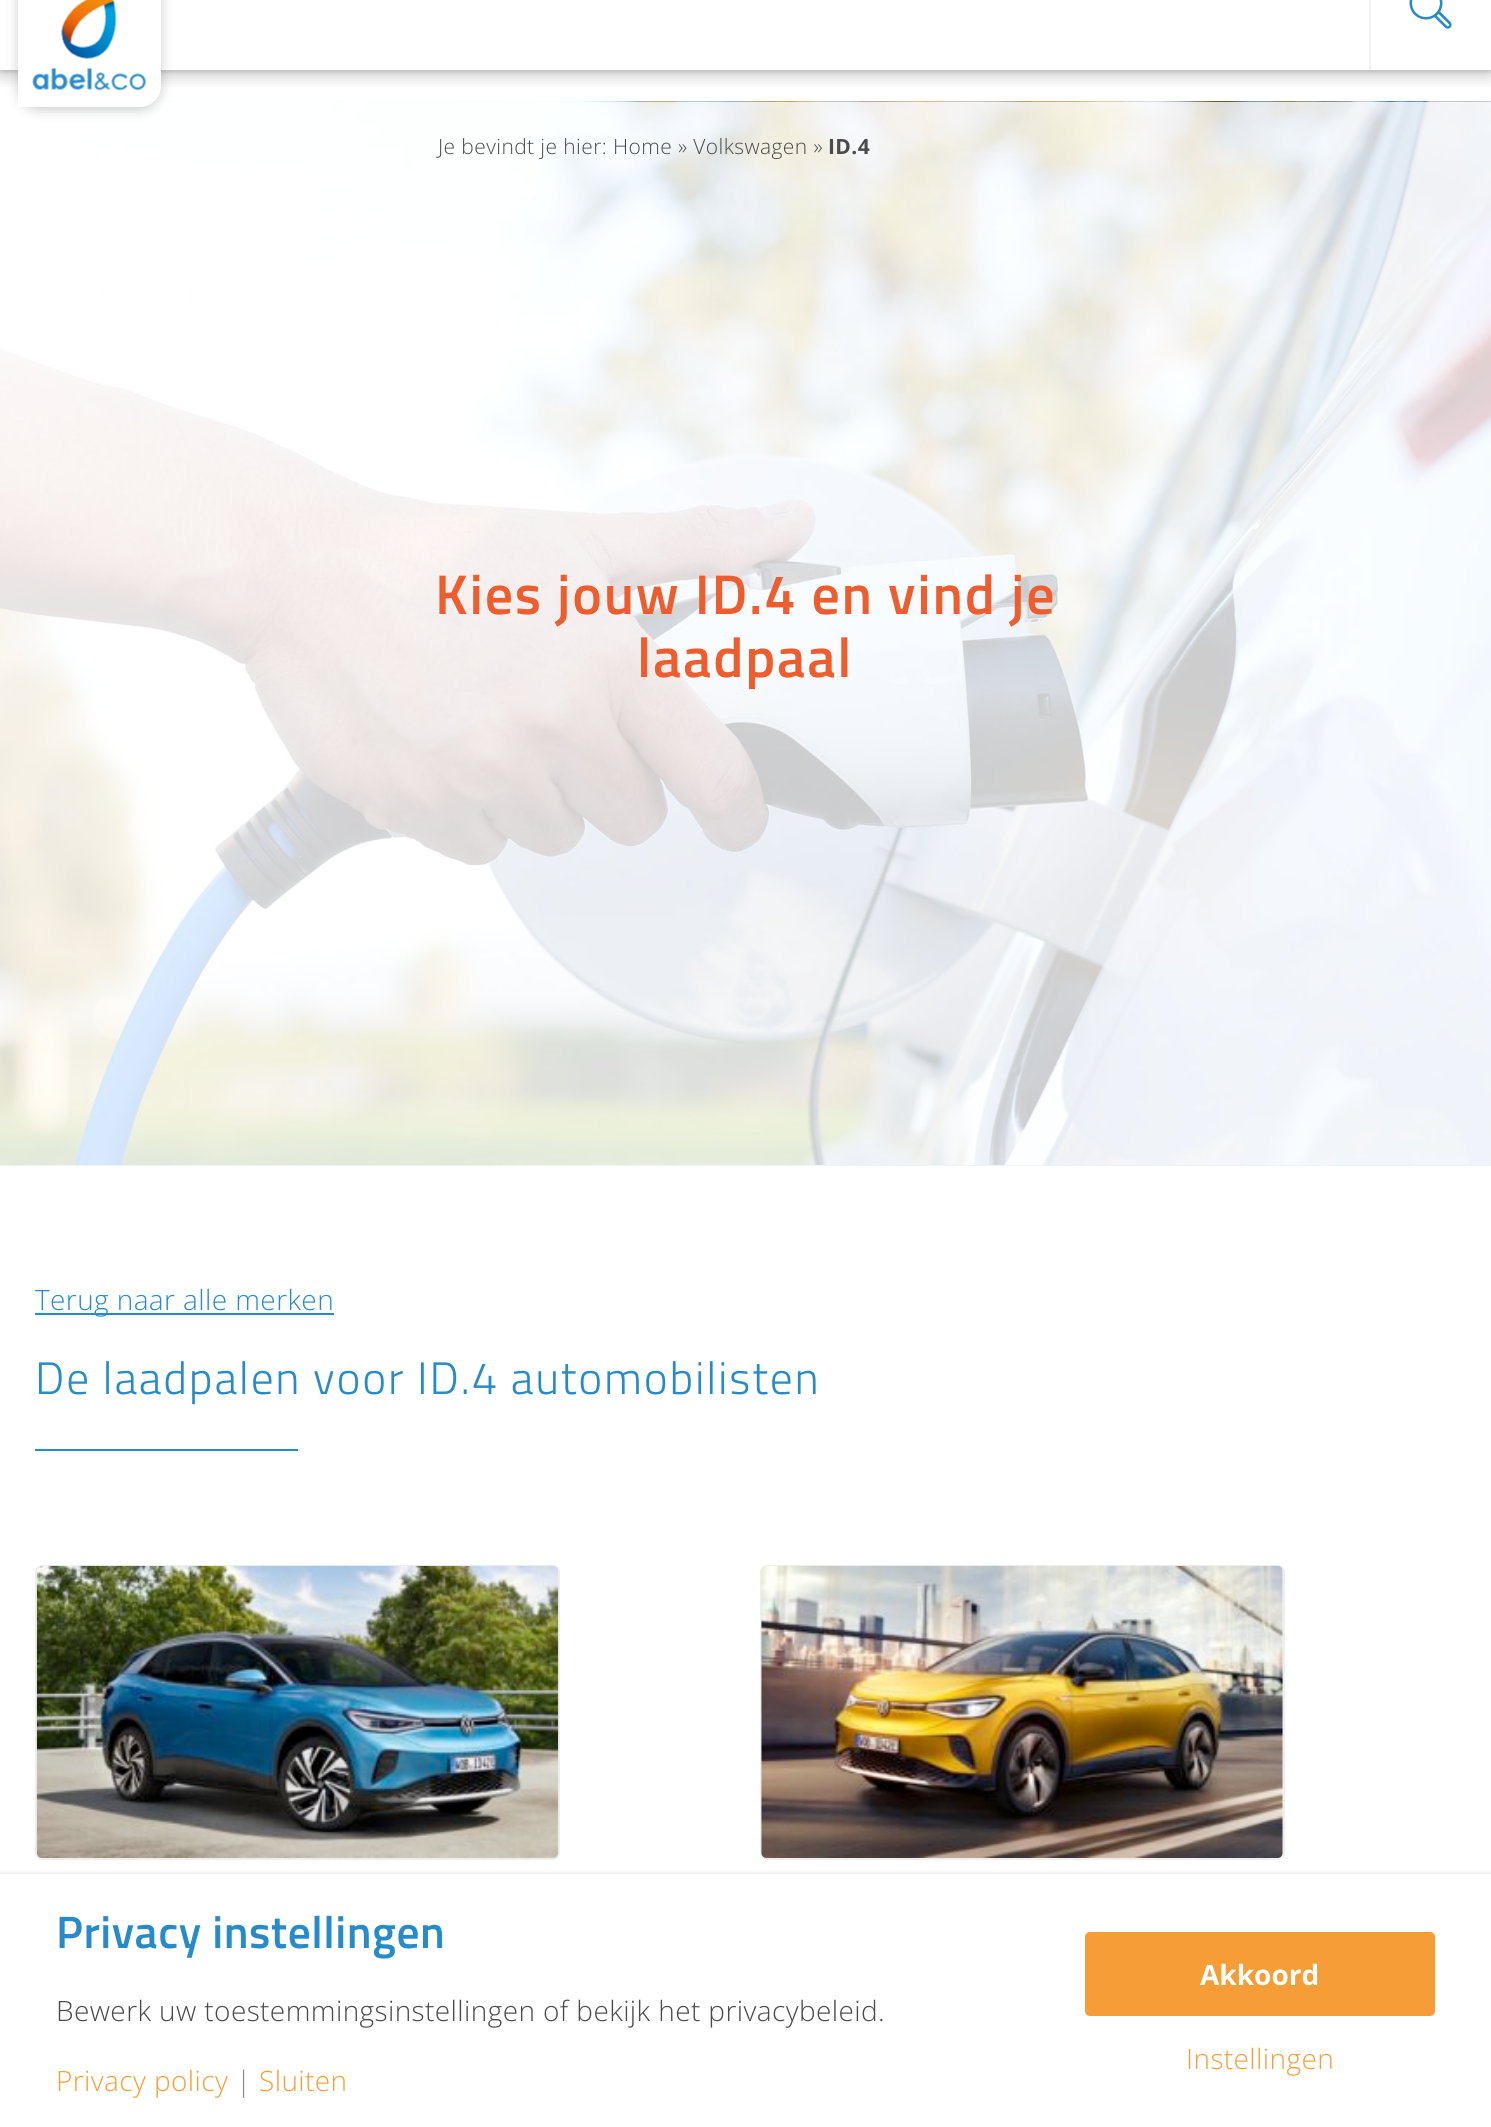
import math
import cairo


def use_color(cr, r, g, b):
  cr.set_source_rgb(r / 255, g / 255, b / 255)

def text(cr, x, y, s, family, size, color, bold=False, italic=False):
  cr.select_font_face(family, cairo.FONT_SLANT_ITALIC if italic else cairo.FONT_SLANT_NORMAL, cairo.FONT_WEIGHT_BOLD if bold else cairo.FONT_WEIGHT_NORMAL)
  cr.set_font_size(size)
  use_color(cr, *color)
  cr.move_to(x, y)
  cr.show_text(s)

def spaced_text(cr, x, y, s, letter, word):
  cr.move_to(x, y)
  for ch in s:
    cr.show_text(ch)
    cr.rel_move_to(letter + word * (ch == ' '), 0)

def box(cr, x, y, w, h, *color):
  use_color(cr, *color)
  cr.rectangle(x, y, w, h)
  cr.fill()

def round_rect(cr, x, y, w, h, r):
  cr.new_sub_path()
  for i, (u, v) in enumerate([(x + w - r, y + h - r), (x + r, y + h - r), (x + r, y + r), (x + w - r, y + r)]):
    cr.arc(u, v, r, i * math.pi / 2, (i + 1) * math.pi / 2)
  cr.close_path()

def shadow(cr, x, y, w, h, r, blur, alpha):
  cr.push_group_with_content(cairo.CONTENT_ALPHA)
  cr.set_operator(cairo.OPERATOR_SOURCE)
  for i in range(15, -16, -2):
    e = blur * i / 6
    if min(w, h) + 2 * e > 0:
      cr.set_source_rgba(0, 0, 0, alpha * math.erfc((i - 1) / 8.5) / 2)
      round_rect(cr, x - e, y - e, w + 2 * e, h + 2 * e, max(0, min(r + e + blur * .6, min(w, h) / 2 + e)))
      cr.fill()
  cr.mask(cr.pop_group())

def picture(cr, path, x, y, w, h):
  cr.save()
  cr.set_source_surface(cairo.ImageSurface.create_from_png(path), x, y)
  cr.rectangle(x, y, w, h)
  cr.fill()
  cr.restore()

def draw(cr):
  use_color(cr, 255, 255, 255)
  cr.paint()
  cr.save()
  cr.rectangle(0, 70, 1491, 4)
  cr.clip()
  use_color(cr, 0, 0, 0)
  shadow(cr, -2, -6, 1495, 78, 0, 2, 0.1)
  cr.restore()
  picture(cr, "img_03.png", 0, 101, 1491, 1064)
  cr.save()
  cr.rectangle(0, 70, 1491, 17)
  cr.clip()
  use_color(cr, 0, 0, 0)
  shadow(cr, 0, -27, 1491, 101, 0, 9, 0.25)
  cr.restore()
  use_color(cr, 0, 0, 0)
  shadow(cr, 18, -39, 143, 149, 21, 6, 0.2)
  use_color(cr, 255, 255, 255)
  cr.new_path()
  cr.move_to(18, -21)
  cr.line_to(161, -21)
  cr.line_to(161, 86)
  cr.curve_to(161, 97.5, 151.5, 107, 140, 107)
  cr.line_to(18, 107)
  cr.close_path()
  cr.fill()
  picture(cr, "img_01.png", 32, 0, 114, 91)
  box(cr, 1369, 0, 2, 70, 241, 241, 241)
  picture(cr, "img_02.png", 1409, 0, 43, 29)
  box(cr, 0, 1165, 1491, 1, 236, 246, 249)
  box(cr, 35, 1313, 299, 2, 39, 139, 201)
  box(cr, 35, 1449, 263, 2, 39, 139, 201)
  round_rect(cr, 36, 1566, 523, 293, 6)
  use_color(cr, 238, 238, 238)
  cr.stroke()
  picture(cr, "img_04.png", 36, 1565, 523, 293)
  round_rect(cr, 761, 1566, 523, 293, 6)
  cr.stroke()
  picture(cr, "img_05.png", 761, 1565, 522, 293)
  use_color(cr, 0, 0, 0)
  shadow(cr, -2, 1873, 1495, 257, 0, 2, 0.1)
  box(cr, 0, 1874, 1491, 253, 255, 255, 255)
  use_color(cr, 247, 157, 55)
  round_rect(cr, 1085, 1932, 350, 84, 5)
  cr.fill()
  cr.select_font_face("Open Sans Light")
  cr.set_font_size(21)
  use_color(cr, 74, 74, 74)
  spaced_text(cr, 438, 154, "Je bevindt je hier: Home » Volkswagen »", 0.4, 0)
  cr.select_font_face("Open Sans", cairo.FONT_SLANT_NORMAL, cairo.FONT_WEIGHT_BOLD)
  spaced_text(cr, 828, 154, "ID.4", 0.4, 0)
  cr.select_font_face("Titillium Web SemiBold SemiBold")
  cr.set_font_size(56)
  use_color(cr, 238, 93, 45)
  spaced_text(cr, 435, 614, "Kies jouw ID.4 en vind je", 1.75, 0)
  spaced_text(cr, 637, 677, "laadpaal", 1.75, 0)
  cr.select_font_face("Open Sans Light")
  cr.set_font_size(28)
  use_color(cr, 39, 139, 201)
  spaced_text(cr, 35, 1310, "Terug naar alle merken", 0.4, 0)
  cr.select_font_face("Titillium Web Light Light")
  cr.set_font_size(45.5)
  spaced_text(cr, 35, 1394, "De laadpalen voor ID.4 automobilisten", 1.75, 0)
  cr.select_font_face("Titillium Web SemiBold SemiBold")
  spaced_text(cr, 56, 1948, "Privacy instellingen", 0.5, 0)
  cr.select_font_face("Open Sans Light")
  cr.set_font_size(28)
  use_color(cr, 74, 74, 74)
  spaced_text(cr, 56, 2021, "Bewerk uw toestemmingsinstellingen of bekijk het privacybeleid.", 0.4, 0)
  use_color(cr, 247, 157, 55)
  spaced_text(cr, 56, 2091, "Privacy policy", 0.4, 0)
  use_color(cr, 137, 137, 137)
  spaced_text(cr, 236, 2091, "|", 0.4, 0)
  use_color(cr, 247, 157, 55)
  spaced_text(cr, 259, 2091, "Sluiten", 0.4, 0)
  text(cr, 1200, 1985, "Akkoord", "Open Sans", 28, (255, 255, 255), bold=True)
  cr.select_font_face("Open Sans Light")
  use_color(cr, 247, 157, 55)
  spaced_text(cr, 1186, 2069, "Instellingen", 0.4, 0)


surface = cairo.ImageSurface(cairo.FORMAT_RGB24, 1491, 2127)
cr = cairo.Context(surface)
options = cairo.FontOptions()
options.set_hint_metrics(cairo.HINT_METRICS_OFF)
options.set_hint_style(cairo.HINT_STYLE_NONE)
cr.set_font_options(options)
cr.set_miter_limit(4)
draw(cr)
surface.write_to_png("out.png")
